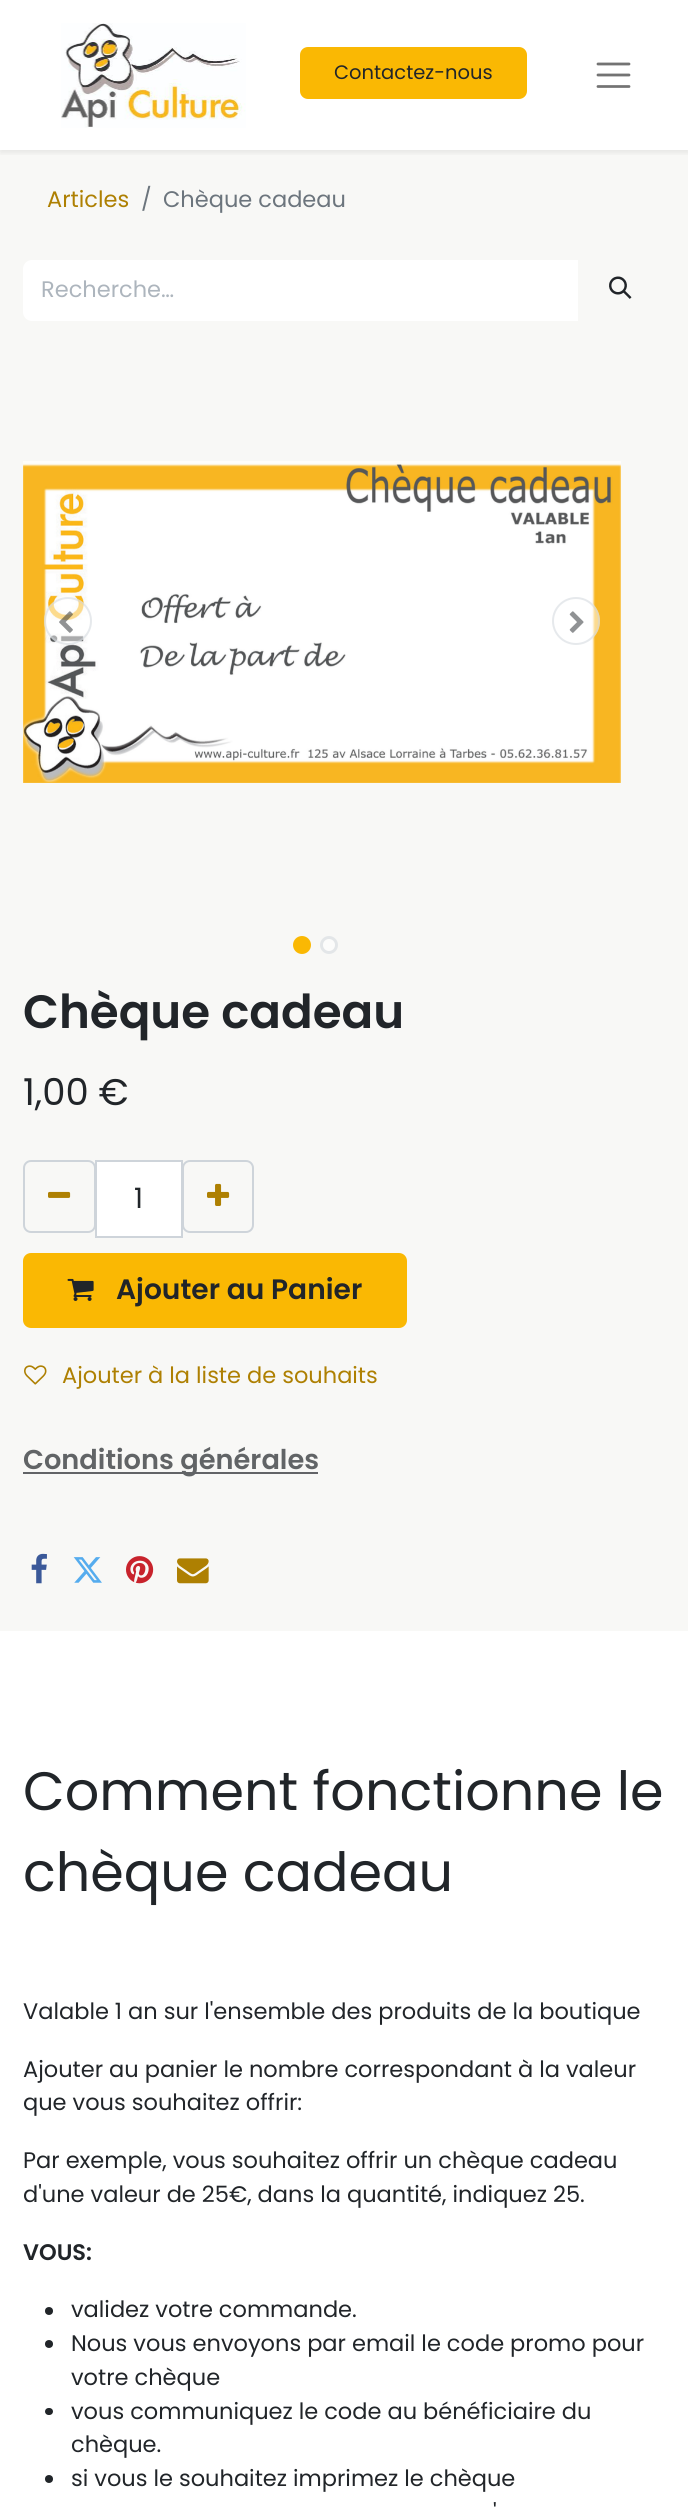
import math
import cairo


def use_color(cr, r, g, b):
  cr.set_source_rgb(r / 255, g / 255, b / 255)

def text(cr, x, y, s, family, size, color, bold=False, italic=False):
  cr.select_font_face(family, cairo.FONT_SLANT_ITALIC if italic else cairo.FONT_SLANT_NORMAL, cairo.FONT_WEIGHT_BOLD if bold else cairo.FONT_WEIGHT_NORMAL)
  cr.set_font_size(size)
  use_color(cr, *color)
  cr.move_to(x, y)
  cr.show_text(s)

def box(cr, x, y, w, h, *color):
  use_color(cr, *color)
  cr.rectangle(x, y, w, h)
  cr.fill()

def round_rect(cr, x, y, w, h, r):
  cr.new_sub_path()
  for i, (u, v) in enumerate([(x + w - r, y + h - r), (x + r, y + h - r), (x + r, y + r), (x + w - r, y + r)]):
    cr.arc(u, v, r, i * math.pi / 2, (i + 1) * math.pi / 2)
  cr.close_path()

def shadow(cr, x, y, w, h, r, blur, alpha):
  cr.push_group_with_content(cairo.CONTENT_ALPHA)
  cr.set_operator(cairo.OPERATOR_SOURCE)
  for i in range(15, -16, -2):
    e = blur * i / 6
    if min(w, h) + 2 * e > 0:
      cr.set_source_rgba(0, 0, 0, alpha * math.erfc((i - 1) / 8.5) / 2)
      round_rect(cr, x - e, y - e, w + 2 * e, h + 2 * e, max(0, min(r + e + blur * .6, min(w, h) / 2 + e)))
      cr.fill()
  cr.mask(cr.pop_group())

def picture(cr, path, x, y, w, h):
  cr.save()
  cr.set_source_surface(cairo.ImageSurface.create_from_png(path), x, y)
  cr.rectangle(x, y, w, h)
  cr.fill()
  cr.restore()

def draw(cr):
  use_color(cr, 255, 255, 255)
  cr.paint()
  box(cr, 0, 150, 688, 1481, 248, 248, 246)
  cr.save()
  cr.rectangle(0, 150, 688, 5)
  cr.clip()
  use_color(cr, 0, 0, 0)
  shadow(cr, 0, 3, 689, 150, 0, 3, 0.07)
  cr.restore()
  picture(cr, "img_01.png", 61, 23, 185, 105)
  use_color(cr, 250, 184, 3)
  round_rect(cr, 301, 48, 225, 50, 7)
  cr.fill_preserve()
  cr.stroke()
  cr.new_path()
  cr.move_to(598, 64)
  cr.line_to(629, 64)
  cr.move_to(598, 75)
  cr.line_to(629, 75)
  cr.move_to(598, 86.5)
  cr.line_to(629, 86.5)
  use_color(cr, 115, 115, 115)
  cr.set_line_width(2.8)
  cr.set_line_cap(cairo.LINE_CAP_ROUND)
  cr.stroke()
  use_color(cr, 255, 255, 255)
  cr.new_path()
  cr.move_to(32, 260)
  cr.line_to(578, 260)
  cr.line_to(578, 321)
  cr.line_to(32, 321)
  cr.curve_to(27, 321, 23, 317, 23, 312)
  cr.line_to(23, 269)
  cr.curve_to(23, 264, 27, 260, 32, 260)
  cr.close_path()
  cr.fill()
  picture(cr, "img_02.png", 609, 276, 23, 23)
  picture(cr, "img_03.png", 23, 461, 598, 322)
  cr.set_source_rgba(1, 1, 1, 0.5)
  cr.arc(68, 621, 24, 0, 2 * math.pi)
  cr.fill()
  cr.arc(68, 621, 23, 0, 2 * math.pi)
  cr.set_source_rgba(0.808, 0.831, 0.855, 0.5)
  cr.set_line_width(2)
  cr.set_line_cap(cairo.LINE_CAP_BUTT)
  cr.stroke()
  picture(cr, "img_04.png", 59, 611, 14, 22)
  cr.set_source_rgba(1, 1, 1, 0.5)
  cr.arc(576, 621, 24, 0, 2 * math.pi)
  cr.fill()
  cr.arc(576, 621, 23, 0, 2 * math.pi)
  cr.set_source_rgba(0.808, 0.831, 0.855, 0.5)
  cr.stroke()
  picture(cr, "img_05.png", 569, 611, 15, 22)
  use_color(cr, 250, 184, 3)
  cr.arc(302, 945, 7.5, 0, 2 * math.pi)
  cr.fill_preserve()
  cr.set_line_width(3)
  cr.stroke()
  use_color(cr, 252, 252, 251)
  cr.arc(329, 945, 7.5, 0, 2 * math.pi)
  cr.fill_preserve()
  use_color(cr, 227, 230, 232)
  cr.stroke()
  use_color(cr, 255, 255, 255)
  cr.rectangle(96, 1161, 86, 76)
  cr.fill_preserve()
  use_color(cr, 206, 212, 218)
  cr.set_line_width(2)
  cr.stroke()
  round_rect(cr, 24, 1161, 71, 71, 7)
  cr.stroke()
  picture(cr, "img_06.png", 48, 1191, 23, 7)
  round_rect(cr, 183, 1161, 70, 71, 7)
  cr.stroke()
  picture(cr, "img_07.png", 207, 1183, 23, 23)
  use_color(cr, 250, 184, 3)
  round_rect(cr, 24, 1254, 382, 73, 7)
  cr.fill_preserve()
  cr.stroke()
  picture(cr, "img_08.png", 67, 1278, 27, 23)
  picture(cr, "img_09.png", 24, 1365, 23, 20)
  box(cr, 23, 1472, 295, 2, 98, 100, 103)
  picture(cr, "img_10.png", 31, 1553, 16, 31)
  picture(cr, "img_11.png", 73, 1557, 29, 26)
  picture(cr, "img_12.png", 126, 1556, 28, 28)
  picture(cr, "img_13.png", 177, 1558, 32, 26)
  use_color(cr, 33, 37, 41)
  cr.arc(49, 2311, 4, 0, 2 * math.pi)
  cr.fill()
  cr.arc(49, 2344, 4, 0, 2 * math.pi)
  cr.fill()
  round_rect(cr, 45, 2408, 8, 7, 3.5)
  cr.fill()
  cr.arc(49, 2479, 4, 0, 2 * math.pi)
  cr.fill()
  text(cr, 334, 79, "Contactez-nous", "Poppins", 19.5, (33, 37, 41))
  text(cr, 47, 207, "Articles", "Poppins", 22.5, (174, 128, 2))
  text(cr, 141, 207, "/", "Poppins", 22.5, (108, 117, 125))
  text(cr, 163, 207, "Chèque cadeau", "Poppins", 22.5, (108, 117, 125))
  text(cr, 41, 297, "Recherche…", "Poppins", 22.5, (173, 181, 189))
  text(cr, 23, 1028, "Chèque cadeau", "Poppins SemiBold", 46.75, (33, 37, 41))
  text(cr, 23, 1105, "1,00 €", "Poppins", 37, (33, 37, 41))
  text(cr, 134, 1208, "1", "Poppins", 28.1, (33, 37, 41))
  text(cr, 116, 1299, "Ajouter au Panier", "Poppins SemiBold", 28.1, (33, 37, 41))
  text(cr, 62, 1383, "Ajouter à la liste de souhaits", "Poppins", 22.5, (174, 128, 2))
  text(cr, 23, 1469, "Conditions générales", "Poppins SemiBold", 27.25, (97, 100, 102))
  text(cr, 23, 1810, "Comment fonctionne le", "Poppins", 54, (33, 37, 41))
  text(cr, 23, 1891, "chèque cadeau", "Poppins", 54, (33, 37, 41))
  text(cr, 23, 2019, "Valable 1 an sur l'ensemble des produits de la boutique", "Poppins", 22.5, (33, 37, 41))
  text(cr, 23, 2077, "Ajouter au panier le nombre correspondant à la valeur", "Poppins", 22.5, (33, 37, 41))
  text(cr, 23, 2110, "que vous souhaitez offrir:", "Poppins", 22.5, (33, 37, 41))
  text(cr, 23, 2168, "Par exemple, vous souhaitez offrir un chèque cadeau", "Poppins", 22.5, (33, 37, 41))
  text(cr, 23, 2202, "d'une valeur de 25€, dans la quantité, indiquez 25.", "Poppins", 22.5, (33, 37, 41))
  text(cr, 23, 2260, "VOUS:", "Poppins SemiBold", 22.5, (33, 37, 41))
  text(cr, 71, 2317, "validez votre commande.", "Poppins", 22.5, (33, 37, 41))
  text(cr, 71, 2351, "Nous vous envoyons par email le code promo pour", "Poppins", 22.5, (33, 37, 41))
  text(cr, 71, 2385, "votre chèque", "Poppins", 22.5, (33, 37, 41))
  text(cr, 71, 2419, "vous communiquez le code au bénéficiaire du", "Poppins", 22.5, (33, 37, 41))
  text(cr, 71, 2452, "chèque.", "Poppins", 22.5, (33, 37, 41))
  text(cr, 71, 2486, "si vous le souhaitez imprimez le chèque", "Poppins", 22.5, (33, 37, 41))
  text(cr, 493, 2520, "'", "Poppins", 22.5, (33, 37, 41))


surface = cairo.ImageSurface(cairo.FORMAT_RGB24, 688, 2511)
cr = cairo.Context(surface)
options = cairo.FontOptions()
options.set_hint_metrics(cairo.HINT_METRICS_OFF)
options.set_hint_style(cairo.HINT_STYLE_NONE)
cr.set_font_options(options)
cr.set_miter_limit(4)
draw(cr)
surface.write_to_png("out.png")
